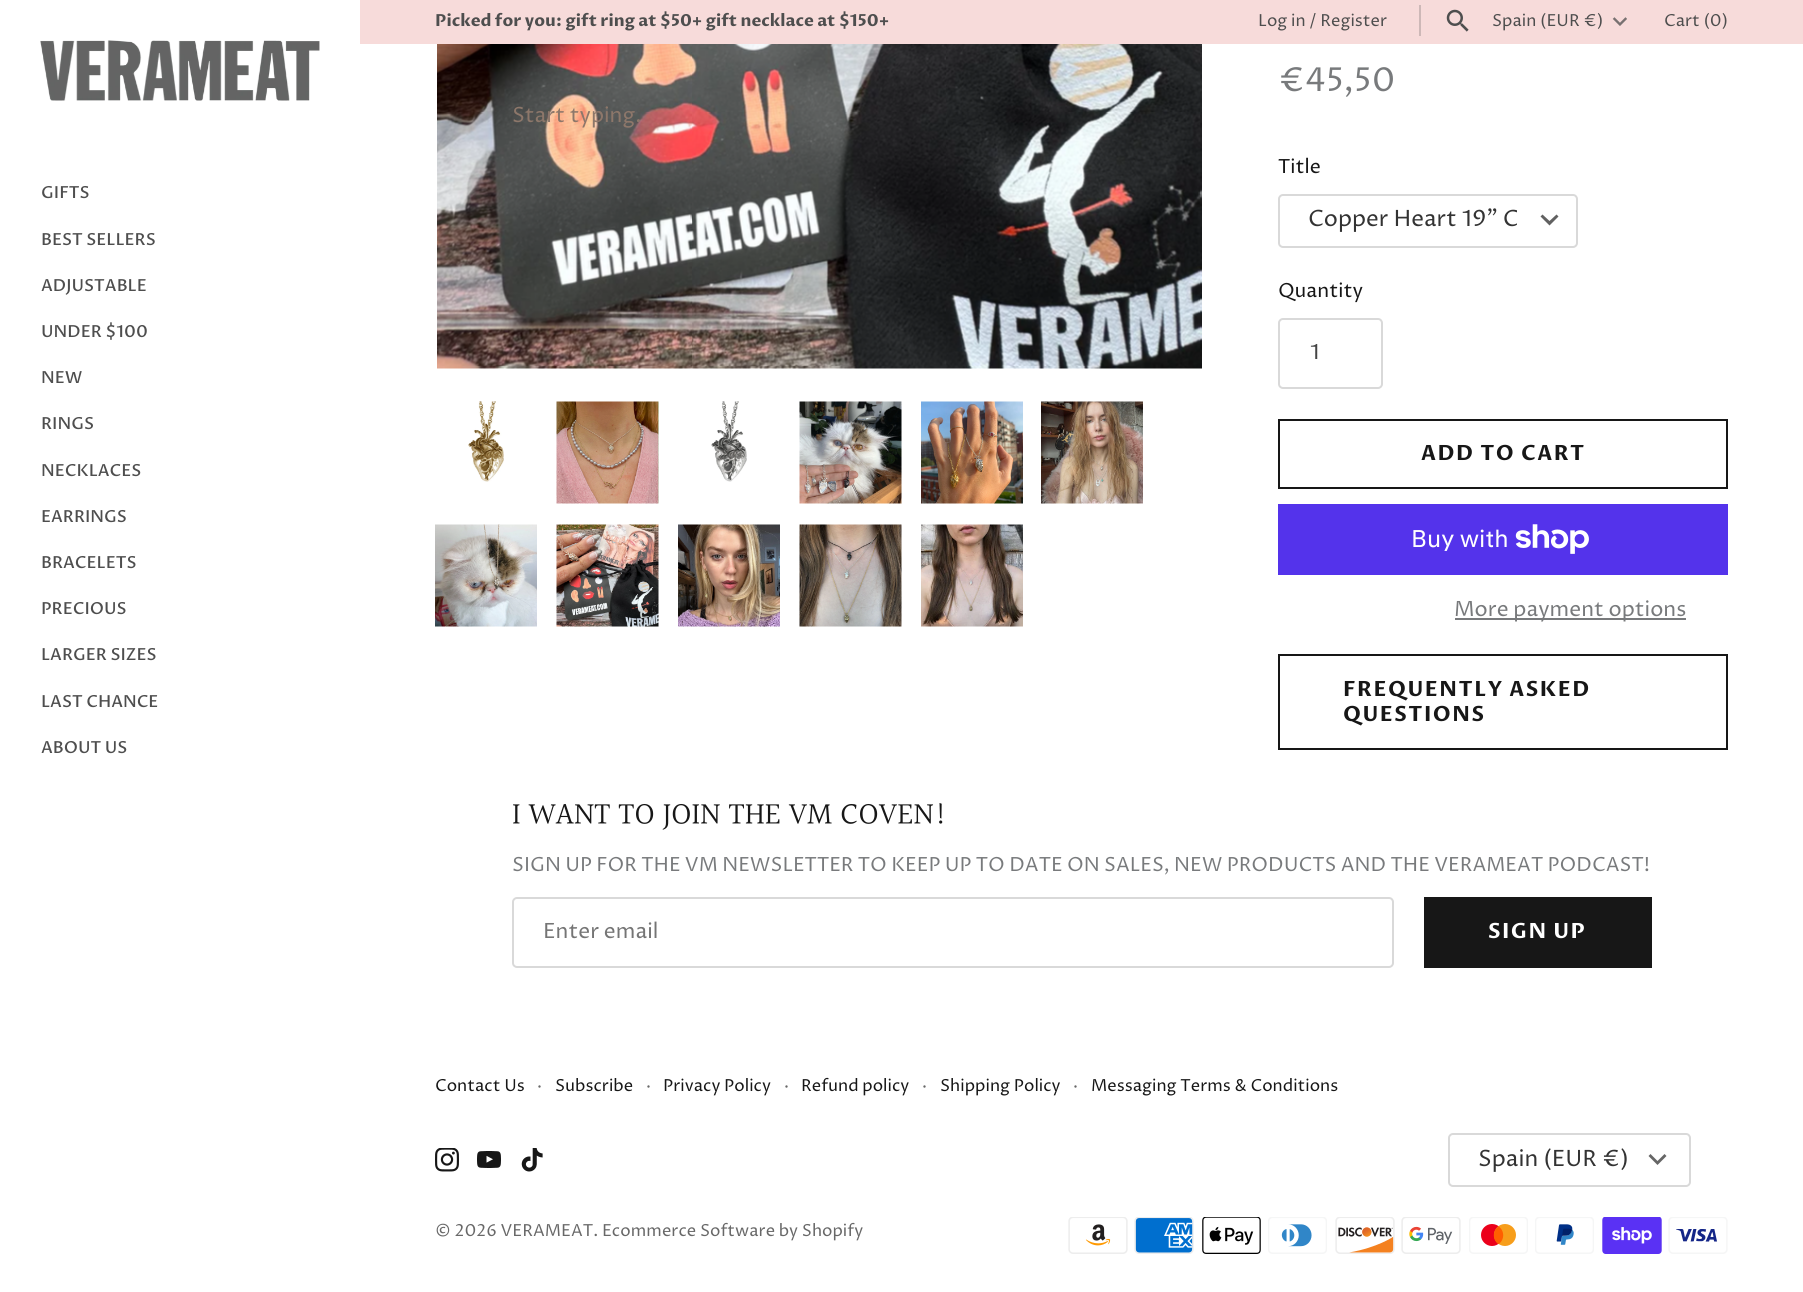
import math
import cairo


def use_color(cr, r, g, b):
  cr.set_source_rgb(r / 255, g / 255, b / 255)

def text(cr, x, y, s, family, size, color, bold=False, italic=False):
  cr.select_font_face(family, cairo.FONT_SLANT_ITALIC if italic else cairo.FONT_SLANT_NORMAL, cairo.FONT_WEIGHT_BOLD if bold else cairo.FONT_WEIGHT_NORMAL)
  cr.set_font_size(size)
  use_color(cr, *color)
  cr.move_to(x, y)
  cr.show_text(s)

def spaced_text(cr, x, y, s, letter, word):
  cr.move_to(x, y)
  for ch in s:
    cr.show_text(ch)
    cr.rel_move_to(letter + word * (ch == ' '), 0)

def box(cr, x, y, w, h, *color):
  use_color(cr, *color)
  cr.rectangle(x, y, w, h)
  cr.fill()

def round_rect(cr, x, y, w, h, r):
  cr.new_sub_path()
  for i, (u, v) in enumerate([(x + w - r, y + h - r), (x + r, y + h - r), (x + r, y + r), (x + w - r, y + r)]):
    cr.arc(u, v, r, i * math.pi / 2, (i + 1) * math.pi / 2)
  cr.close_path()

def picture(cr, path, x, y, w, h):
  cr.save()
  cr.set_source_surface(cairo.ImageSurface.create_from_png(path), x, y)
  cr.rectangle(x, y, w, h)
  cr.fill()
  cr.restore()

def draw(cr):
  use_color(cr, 255, 255, 255)
  cr.paint()
  box(cr, 360, 0, 1443, 44, 247, 219, 218)
  box(cr, 1419, 5, 2, 31, 205, 184, 183)
  picture(cr, "img_01.png", 1446, 9, 23, 23)
  picture(cr, "img_02.png", 1612, 17, 15, 9)
  picture(cr, "img_03.png", 40, 40, 280, 61)
  picture(cr, "img_04.png", 437, 44, 765, 325)
  picture(cr, "img_05.png", 468, 401, 36, 81)
  picture(cr, "img_06.png", 556, 401, 103, 103)
  picture(cr, "img_07.png", 711, 401, 36, 81)
  picture(cr, "img_08.png", 799, 401, 103, 103)
  picture(cr, "img_09.png", 921, 401, 102, 103)
  picture(cr, "img_10.png", 1041, 401, 102, 103)
  picture(cr, "img_11.png", 435, 524, 102, 103)
  picture(cr, "img_12.png", 556, 524, 103, 103)
  picture(cr, "img_13.png", 678, 524, 102, 103)
  picture(cr, "img_14.png", 799, 524, 103, 103)
  picture(cr, "img_15.png", 921, 524, 102, 103)
  use_color(cr, 97, 97, 97)
  cr.new_path()
  cr.move_to(1542.5, 214.5)
  cr.line_to(1549.5, 221)
  cr.line_to(1556.5, 214.5)
  cr.line_to(1558.5, 216.5)
  cr.line_to(1549.5, 225.5)
  cr.line_to(1540.5, 216.5)
  cr.close_path()
  cr.fill()
  round_rect(cr, 1279, 195, 298, 52, 4)
  use_color(cr, 217, 217, 217)
  cr.stroke()
  round_rect(cr, 1279, 319, 103, 69, 4)
  cr.stroke()
  cr.rectangle(1279, 420, 448, 68)
  use_color(cr, 23, 23, 23)
  cr.stroke()
  box(cr, 1278, 504, 450, 71, 84, 51, 235)
  picture(cr, "img_16.png", 1515, 524, 74, 30)
  box(cr, 1455, 618, 231, 2, 120, 122, 124)
  cr.rectangle(1279, 655, 448, 94)
  use_color(cr, 23, 23, 23)
  cr.stroke()
  round_rect(cr, 513, 898, 880, 69, 4)
  use_color(cr, 217, 217, 217)
  cr.stroke()
  box(cr, 1424, 897, 228, 71, 23, 23, 23)
  picture(cr, "img_17.png", 435, 1148, 24, 24)
  picture(cr, "img_18.png", 477, 1151, 24, 17)
  picture(cr, "img_19.png", 521, 1148, 22, 24)
  round_rect(cr, 1449, 1134, 241, 52, 4)
  use_color(cr, 217, 217, 217)
  cr.stroke()
  use_color(cr, 102, 102, 102)
  cr.new_path()
  cr.move_to(1650.5, 1154)
  cr.line_to(1657.5, 1161)
  cr.line_to(1664.5, 1154)
  cr.line_to(1666.5, 1156)
  cr.line_to(1657.5, 1165)
  cr.line_to(1648.5, 1156)
  cr.close_path()
  cr.fill()
  picture(cr, "img_20.png", 1068, 1217, 60, 37)
  picture(cr, "img_21.png", 1134, 1217, 60, 37)
  picture(cr, "img_22.png", 1202, 1217, 59, 37)
  picture(cr, "img_23.png", 1268, 1217, 59, 37)
  picture(cr, "img_24.png", 1335, 1217, 60, 37)
  picture(cr, "img_25.png", 1401, 1217, 60, 37)
  picture(cr, "img_26.png", 1469, 1217, 59, 37)
  picture(cr, "img_27.png", 1535, 1217, 59, 37)
  picture(cr, "img_28.png", 1602, 1217, 60, 37)
  picture(cr, "img_29.png", 1668, 1217, 60, 37)
  text(cr, 435, 26, "Picked for you: gift ring at $50+ gift necklace at $150+", "Proza Libre", 16.6, (78, 78, 78), bold=True)
  text(cr, 1258, 26, "Log in / Register", "Proza Libre", 16.6, (78, 78, 78))
  text(cr, 1492, 26, "Spain (EUR €)", "Proza Libre", 16.6, (78, 78, 78))
  text(cr, 1664, 26, "Cart (0)", "Proza Libre", 16.6, (78, 78, 78))
  text(cr, 512, 122, "Start typing.", "Proza Libre", 21, (141, 119, 106))
  text(cr, 41, 198, "GIFTS", "Proza Libre Medium", 16.6, (78, 78, 78))
  text(cr, 41, 245, "BEST SELLERS", "Proza Libre Medium", 16.6, (78, 78, 78))
  text(cr, 41, 291, "ADJUSTABLE", "Proza Libre Medium", 16.6, (78, 78, 78))
  text(cr, 41, 337, "UNDER $100", "Proza Libre Medium", 16.6, (78, 78, 78))
  text(cr, 41, 383, "NEW", "Proza Libre Medium", 16.6, (78, 78, 78))
  text(cr, 41, 429, "RINGS", "Proza Libre Medium", 16.6, (78, 78, 78))
  text(cr, 41, 476, "NECKLACES", "Proza Libre Medium", 16.6, (78, 78, 78))
  text(cr, 41, 522, "EARRINGS", "Proza Libre Medium", 16.6, (78, 78, 78))
  text(cr, 41, 568, "BRACELETS", "Proza Libre Medium", 16.6, (78, 78, 78))
  text(cr, 41, 614, "PRECIOUS", "Proza Libre Medium", 16.6, (78, 78, 78))
  text(cr, 41, 660, "LARGER SIZES", "Proza Libre Medium", 16.6, (78, 78, 78))
  text(cr, 41, 707, "LAST CHANCE", "Proza Libre Medium", 16.6, (78, 78, 78))
  text(cr, 41, 753, "ABOUT US", "Proza Libre Medium", 16.6, (78, 78, 78))
  text(cr, 1278, 91, "€45,50", "Proza Libre", 33, (120, 122, 124))
  text(cr, 1278, 173, "Title", "Proza Libre", 19.5, (23, 23, 23))
  cr.save()
  cr.rectangle(1308, 207, 209, 27)
  cr.clip()
  text(cr, 1308, 226, "Copper Heart 19” C", "Proza Libre", 22.5, (51, 51, 51))
  cr.restore()
  text(cr, 1278, 297, "Quantity", "Proza Libre", 19.5, (23, 23, 23))
  text(cr, 1310, 359, "1", "Proza Libre", 21, (68, 68, 68))
  cr.select_font_face("Proza Libre", cairo.FONT_SLANT_NORMAL, cairo.FONT_WEIGHT_BOLD)
  use_color(cr, 23, 23, 23)
  spaced_text(cr, 1421, 460, "ADD TO CART", 1.5, 0)
  text(cr, 1411, 547, "Buy with", "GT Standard", 24, (255, 255, 255))
  text(cr, 1454, 616, "More payment options", "Proza Libre", 21, (120, 122, 124))
  cr.select_font_face("Proza Libre", cairo.FONT_SLANT_NORMAL, cairo.FONT_WEIGHT_BOLD)
  use_color(cr, 23, 23, 23)
  spaced_text(cr, 1343, 696, "FREQUENTLY ASKED", 1.5, 0)
  spaced_text(cr, 1343, 721, "QUESTIONS", 1.5, 0)
  text(cr, 512, 825, "I WANT TO JOIN THE VM COVEN!", "Halant", 31.25, (23, 23, 23))
  text(cr, 512, 871, "SIGN UP FOR THE VM NEWSLETTER TO KEEP UP TO DATE ON SALES, NEW PRODUCTS AND THE VERAMEAT PODCAST!", "Proza Libre", 19.5, (120, 122, 124))
  text(cr, 543, 938, "Enter email", "Proza Libre", 21, (117, 117, 117))
  cr.select_font_face("Proza Libre", cairo.FONT_SLANT_NORMAL, cairo.FONT_WEIGHT_BOLD)
  use_color(cr, 255, 255, 255)
  spaced_text(cr, 1488, 938, "SIGN UP", 1.5, 0)
  text(cr, 435, 1091, "Contact Us", "Proza Libre", 16.6, (23, 23, 23))
  text(cr, 537, 1091, "·", "Proza Libre", 16.6, (104, 104, 104))
  text(cr, 555, 1091, "Subscribe", "Proza Libre", 16.6, (23, 23, 23))
  text(cr, 646, 1091, "·", "Proza Libre", 16.6, (104, 104, 104))
  text(cr, 663, 1091, "Privacy Policy", "Proza Libre", 16.6, (23, 23, 23))
  text(cr, 784, 1091, "·", "Proza Libre", 16.6, (104, 104, 104))
  text(cr, 801, 1091, "Refund policy", "Proza Libre", 16.6, (23, 23, 23))
  text(cr, 922, 1091, "·", "Proza Libre", 16.6, (104, 104, 104))
  text(cr, 940, 1091, "Shipping Policy", "Proza Libre", 16.6, (23, 23, 23))
  text(cr, 1073, 1091, "·", "Proza Libre", 16.6, (104, 104, 104))
  text(cr, 1091, 1091, "Messaging Terms & Conditions", "Proza Libre", 16.6, (23, 23, 23))
  text(cr, 1478, 1166, "Spain (EUR €)", "Proza Libre", 22.5, (51, 51, 51))
  text(cr, 435, 1236, "© 2026 VERAMEAT. Ecommerce Software by Shopify", "Proza Libre", 16.6, (104, 104, 104))


surface = cairo.ImageSurface(cairo.FORMAT_RGB24, 1803, 1292)
cr = cairo.Context(surface)
options = cairo.FontOptions()
options.set_hint_metrics(cairo.HINT_METRICS_OFF)
options.set_hint_style(cairo.HINT_STYLE_NONE)
cr.set_font_options(options)
cr.set_miter_limit(4)
draw(cr)
surface.write_to_png("out.png")
